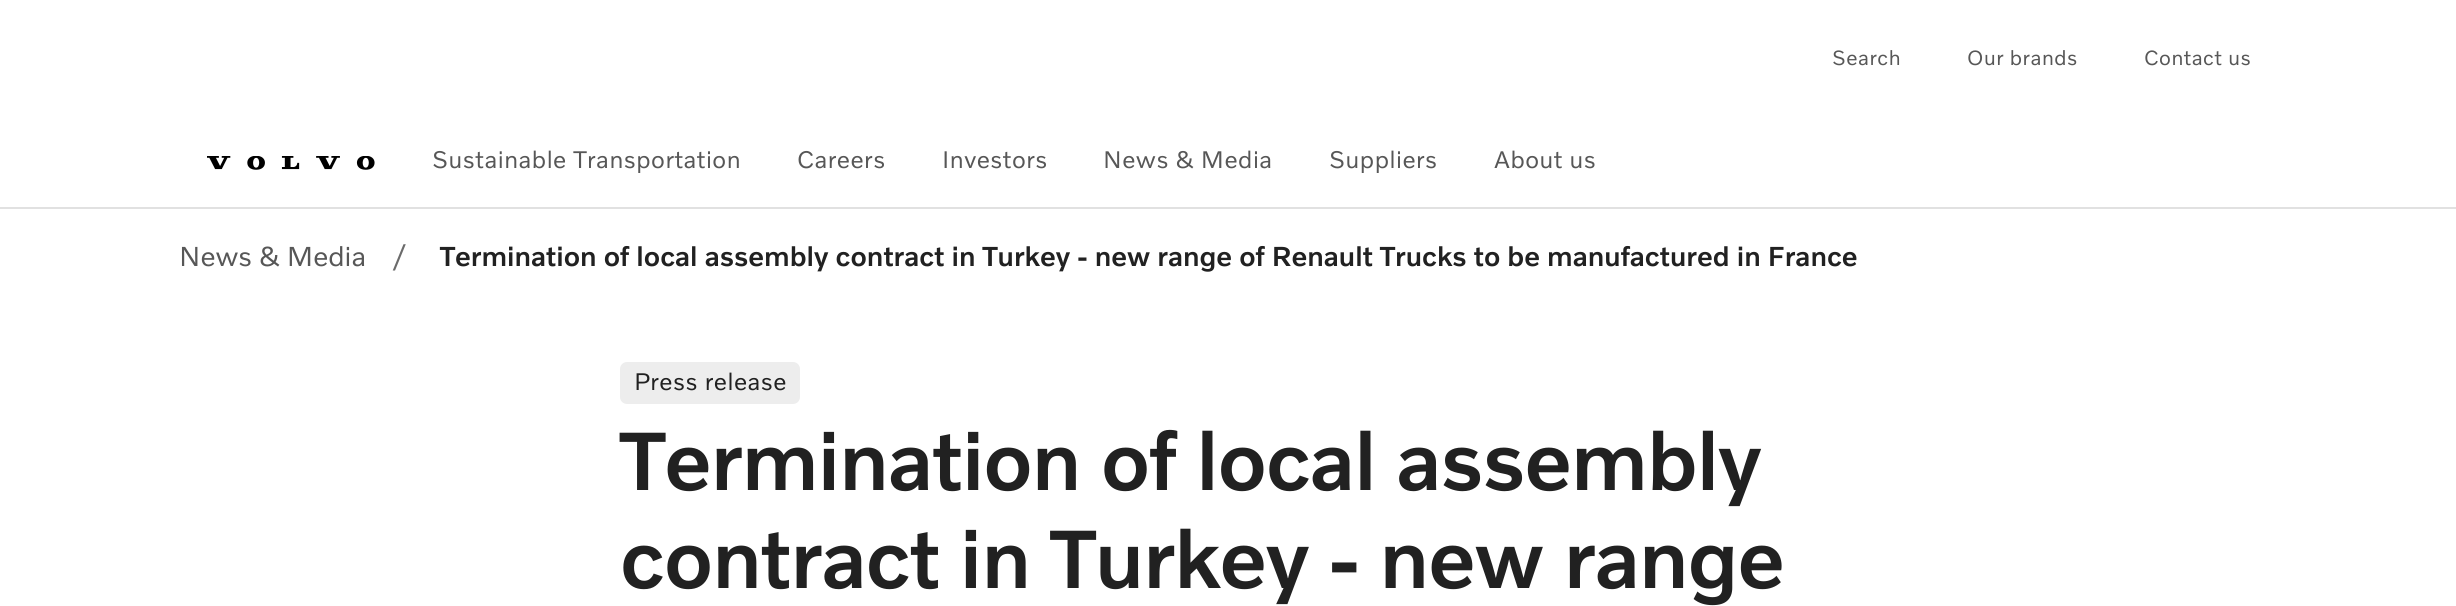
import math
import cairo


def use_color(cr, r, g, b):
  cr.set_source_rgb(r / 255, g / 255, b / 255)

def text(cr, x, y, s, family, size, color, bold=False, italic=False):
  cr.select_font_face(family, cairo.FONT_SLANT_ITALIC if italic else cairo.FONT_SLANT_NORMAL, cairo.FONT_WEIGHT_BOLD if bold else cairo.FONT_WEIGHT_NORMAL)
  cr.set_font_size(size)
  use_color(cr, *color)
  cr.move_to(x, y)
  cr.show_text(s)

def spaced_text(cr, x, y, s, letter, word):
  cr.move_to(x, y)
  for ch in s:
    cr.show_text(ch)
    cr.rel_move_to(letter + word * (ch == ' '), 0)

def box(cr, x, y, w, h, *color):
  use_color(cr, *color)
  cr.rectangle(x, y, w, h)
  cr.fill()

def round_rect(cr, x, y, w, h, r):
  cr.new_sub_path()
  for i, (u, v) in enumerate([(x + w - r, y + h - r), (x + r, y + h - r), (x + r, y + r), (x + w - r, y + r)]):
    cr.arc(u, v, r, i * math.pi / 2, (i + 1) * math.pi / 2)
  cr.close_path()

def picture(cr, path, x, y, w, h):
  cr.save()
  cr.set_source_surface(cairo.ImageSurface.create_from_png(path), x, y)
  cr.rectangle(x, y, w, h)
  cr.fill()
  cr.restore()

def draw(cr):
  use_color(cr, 255, 255, 255)
  cr.paint()
  box(cr, 0, 207, 2456, 2, 225, 225, 225)
  picture(cr, "img_01.png", 207, 156, 168, 14)
  use_color(cr, 237, 237, 237)
  round_rect(cr, 620, 362, 180, 42, 7)
  cr.fill()
  cr.select_font_face("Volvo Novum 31")
  cr.set_font_size(21)
  use_color(cr, 87, 87, 87)
  spaced_text(cr, 1832, 65, "Search", 0.5, 0)
  spaced_text(cr, 1967, 65, "Our brands", 0.5, 0)
  spaced_text(cr, 2144, 65, "Contact us", 0.5, 0)
  cr.set_font_size(24.5)
  spaced_text(cr, 432, 168, "Sustainable Transportation", 0.5, 0)
  spaced_text(cr, 797, 168, "Careers", 0.5, 0)
  spaced_text(cr, 942, 168, "Investors", 0.5, 0)
  spaced_text(cr, 1103, 168, "News & Media", 0.5, 0)
  spaced_text(cr, 1329, 168, "Suppliers", 0.5, 0)
  spaced_text(cr, 1494, 168, "About us", 0.5, 0)
  text(cr, 179, 266, "News & Media", "Volvo Novum 31", 28, (87, 87, 87))
  text(cr, 394, 266, "/", "Volvo Novum 31", 28, (107, 107, 107))
  text(cr, 440, 266, "Termination of local assembly contract in Turkey - new range of Renault Trucks to be manufactured in France", "Volvo Novum 31", 28, (33, 33, 33), bold=True)
  cr.select_font_face("Volvo Novum 31")
  cr.set_font_size(24.5)
  spaced_text(cr, 634, 390, "Press release", 0.5, 0)
  cr.select_font_face("Volvo Novum 31", cairo.FONT_SLANT_NORMAL, cairo.FONT_WEIGHT_BOLD)
  cr.set_font_size(84)
  spaced_text(cr, 620, 490, "Termination of local assembly", -0.85, 0)
  spaced_text(cr, 620, 588, "contract in Turkey - new range", -0.85, 0)


surface = cairo.ImageSurface(cairo.FORMAT_RGB24, 2456, 606)
cr = cairo.Context(surface)
options = cairo.FontOptions()
options.set_hint_metrics(cairo.HINT_METRICS_OFF)
options.set_hint_style(cairo.HINT_STYLE_NONE)
cr.set_font_options(options)
cr.set_miter_limit(4)
draw(cr)
surface.write_to_png("out.png")
